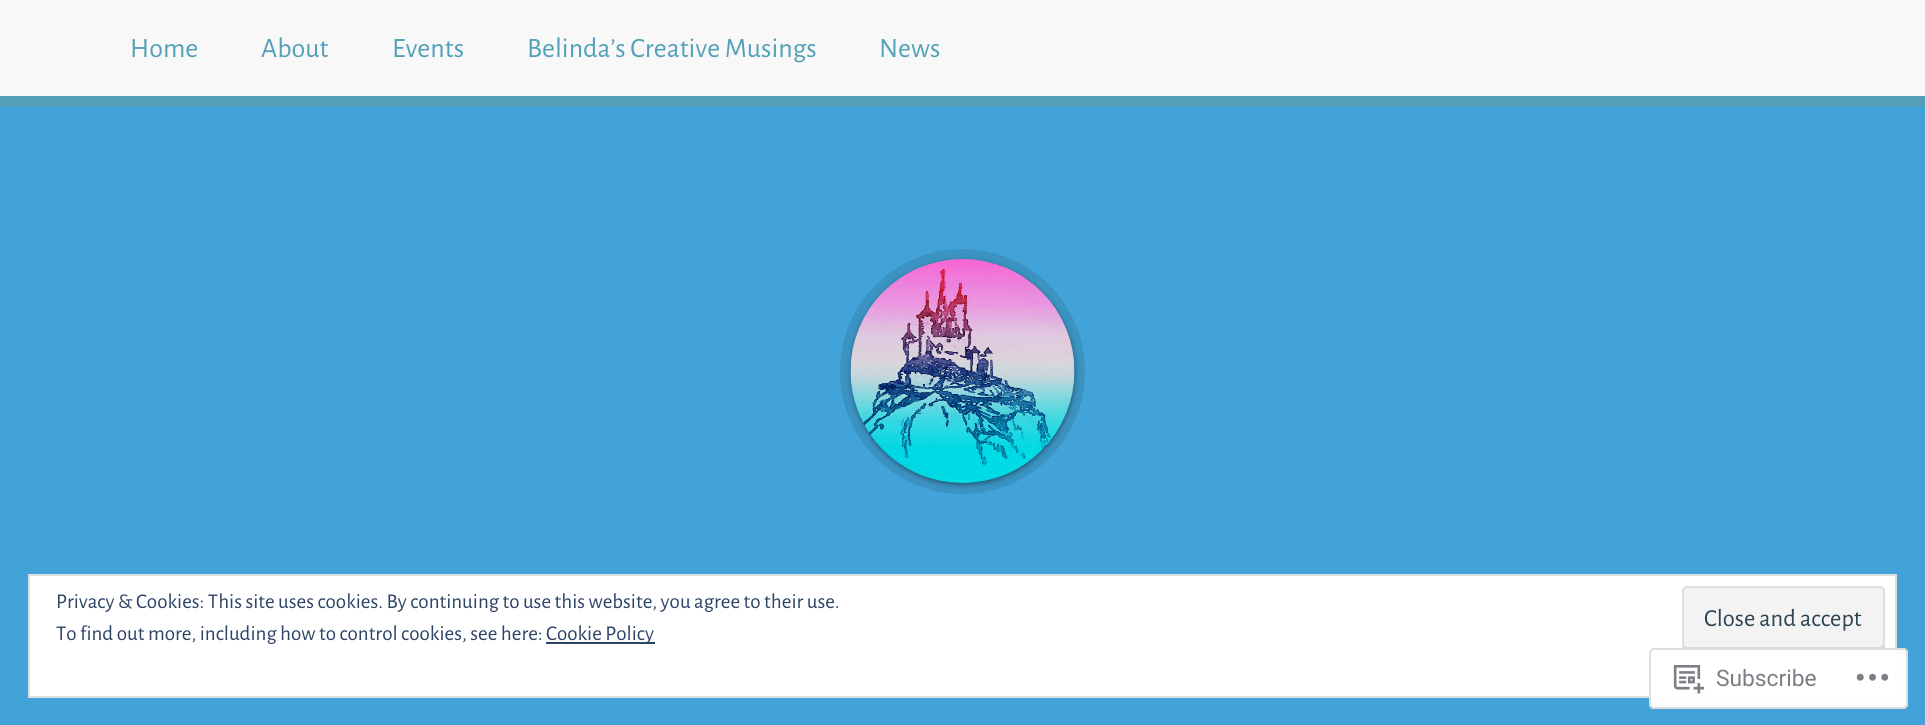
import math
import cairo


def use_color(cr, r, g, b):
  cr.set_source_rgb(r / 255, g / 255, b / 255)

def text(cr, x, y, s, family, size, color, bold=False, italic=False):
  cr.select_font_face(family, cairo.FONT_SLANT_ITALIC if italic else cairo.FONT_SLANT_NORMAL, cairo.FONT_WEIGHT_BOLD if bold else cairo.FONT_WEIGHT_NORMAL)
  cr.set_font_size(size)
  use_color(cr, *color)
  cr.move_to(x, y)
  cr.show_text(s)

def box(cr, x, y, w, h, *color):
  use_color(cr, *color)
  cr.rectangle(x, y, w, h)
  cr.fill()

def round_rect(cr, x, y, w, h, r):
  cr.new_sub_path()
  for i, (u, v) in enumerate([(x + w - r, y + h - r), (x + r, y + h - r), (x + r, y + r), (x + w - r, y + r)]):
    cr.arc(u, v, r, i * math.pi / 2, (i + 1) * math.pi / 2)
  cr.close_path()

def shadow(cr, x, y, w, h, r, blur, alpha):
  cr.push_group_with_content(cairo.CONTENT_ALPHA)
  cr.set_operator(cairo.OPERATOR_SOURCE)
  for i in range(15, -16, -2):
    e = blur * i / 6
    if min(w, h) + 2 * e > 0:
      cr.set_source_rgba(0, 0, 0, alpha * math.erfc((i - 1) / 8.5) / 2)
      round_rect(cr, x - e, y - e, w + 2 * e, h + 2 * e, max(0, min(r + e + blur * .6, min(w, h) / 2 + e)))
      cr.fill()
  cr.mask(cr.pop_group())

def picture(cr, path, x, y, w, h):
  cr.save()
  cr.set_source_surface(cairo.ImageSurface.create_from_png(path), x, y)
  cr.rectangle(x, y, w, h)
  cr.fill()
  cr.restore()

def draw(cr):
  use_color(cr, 66, 163, 216)
  cr.paint()
  box(cr, 0, 0, 1925, 96, 248, 248, 249)
  box(cr, 0, 96, 1925, 11, 83, 161, 184)
  cr.arc(962.5, 371.5, 117, 0, 2 * math.pi)
  use_color(cr, 59, 147, 194)
  cr.set_line_width(11)
  cr.stroke()
  use_color(cr, 0, 0, 0)
  shadow(cr, 851, 261, 224, 224, 112, 2.5, 0.4)
  picture(cr, "img_01.png", 850, 259, 225, 224)
  use_color(cr, 255, 255, 255)
  cr.rectangle(29, 575, 1867, 122)
  cr.fill_preserve()
  use_color(cr, 222, 222, 222)
  cr.set_line_width(2)
  cr.stroke()
  use_color(cr, 243, 243, 243)
  round_rect(cr, 1682, 586, 203, 69, 5)
  cr.fill()
  use_color(cr, 219, 219, 219)
  cr.new_path()
  cr.move_to(1684, 643)
  cr.line_to(1684, 649)
  cr.curve_to(1684, 651, 1686, 653, 1688, 653)
  cr.line_to(1879, 653)
  cr.curve_to(1881, 653, 1883, 651, 1883, 649)
  cr.line_to(1883, 643)
  cr.curve_to(1883, 645, 1881, 647, 1880, 647)
  cr.line_to(1687, 647)
  cr.curve_to(1685, 647, 1684, 645, 1684, 643)
  cr.close_path()
  cr.fill()
  round_rect(cr, 1683, 587, 201, 67, 4)
  use_color(cr, 222, 222, 222)
  cr.stroke()
  box(cr, 546, 642, 109, 2, 46, 68, 103)
  cr.set_source_rgba(1, 1, 1, 0.98)
  round_rect(cr, 1649, 648, 259, 61, 5)
  cr.fill()
  round_rect(cr, 1650, 649, 257, 59, 4)
  cr.set_source_rgba(0.863, 0.863, 0.871, 0.98)
  cr.stroke()
  picture(cr, "img_02.png", 1673, 665, 32, 29)
  picture(cr, "img_03.png", 1856, 673, 33, 8)
  text(cr, 130, 57, "Home", "Alegreya Sans", 28, (83, 161, 184))
  text(cr, 261, 57, "About", "Alegreya Sans", 28, (83, 161, 184))
  text(cr, 392, 57, "Events", "Alegreya Sans", 28, (83, 161, 184))
  text(cr, 527, 57, "Belinda’s Creative Musings", "Alegreya Sans", 28, (83, 161, 184))
  text(cr, 879, 57, "News", "Alegreya Sans", 28, (83, 161, 184))
  text(cr, 56, 608, "Privacy & Cookies: This site uses cookies. By continuing to use this website, you agree to their use.", "Alegreya Sans", 21, (46, 68, 103))
  text(cr, 1704, 626, "Close and accept", "Alegreya Sans", 24.5, (46, 68, 83))
  text(cr, 56, 640, "To find out more, including how to control cookies, see here:", "Alegreya Sans", 21, (46, 68, 103))
  text(cr, 546, 640, "Cookie Policy", "Alegreya Sans", 21, (46, 68, 103))
  text(cr, 1716, 686, "Subscribe", "Roboto", 22.75, (123, 127, 133))


surface = cairo.ImageSurface(cairo.FORMAT_RGB24, 1925, 725)
cr = cairo.Context(surface)
options = cairo.FontOptions()
options.set_hint_metrics(cairo.HINT_METRICS_OFF)
options.set_hint_style(cairo.HINT_STYLE_NONE)
cr.set_font_options(options)
cr.set_miter_limit(4)
draw(cr)
surface.write_to_png("out.png")
